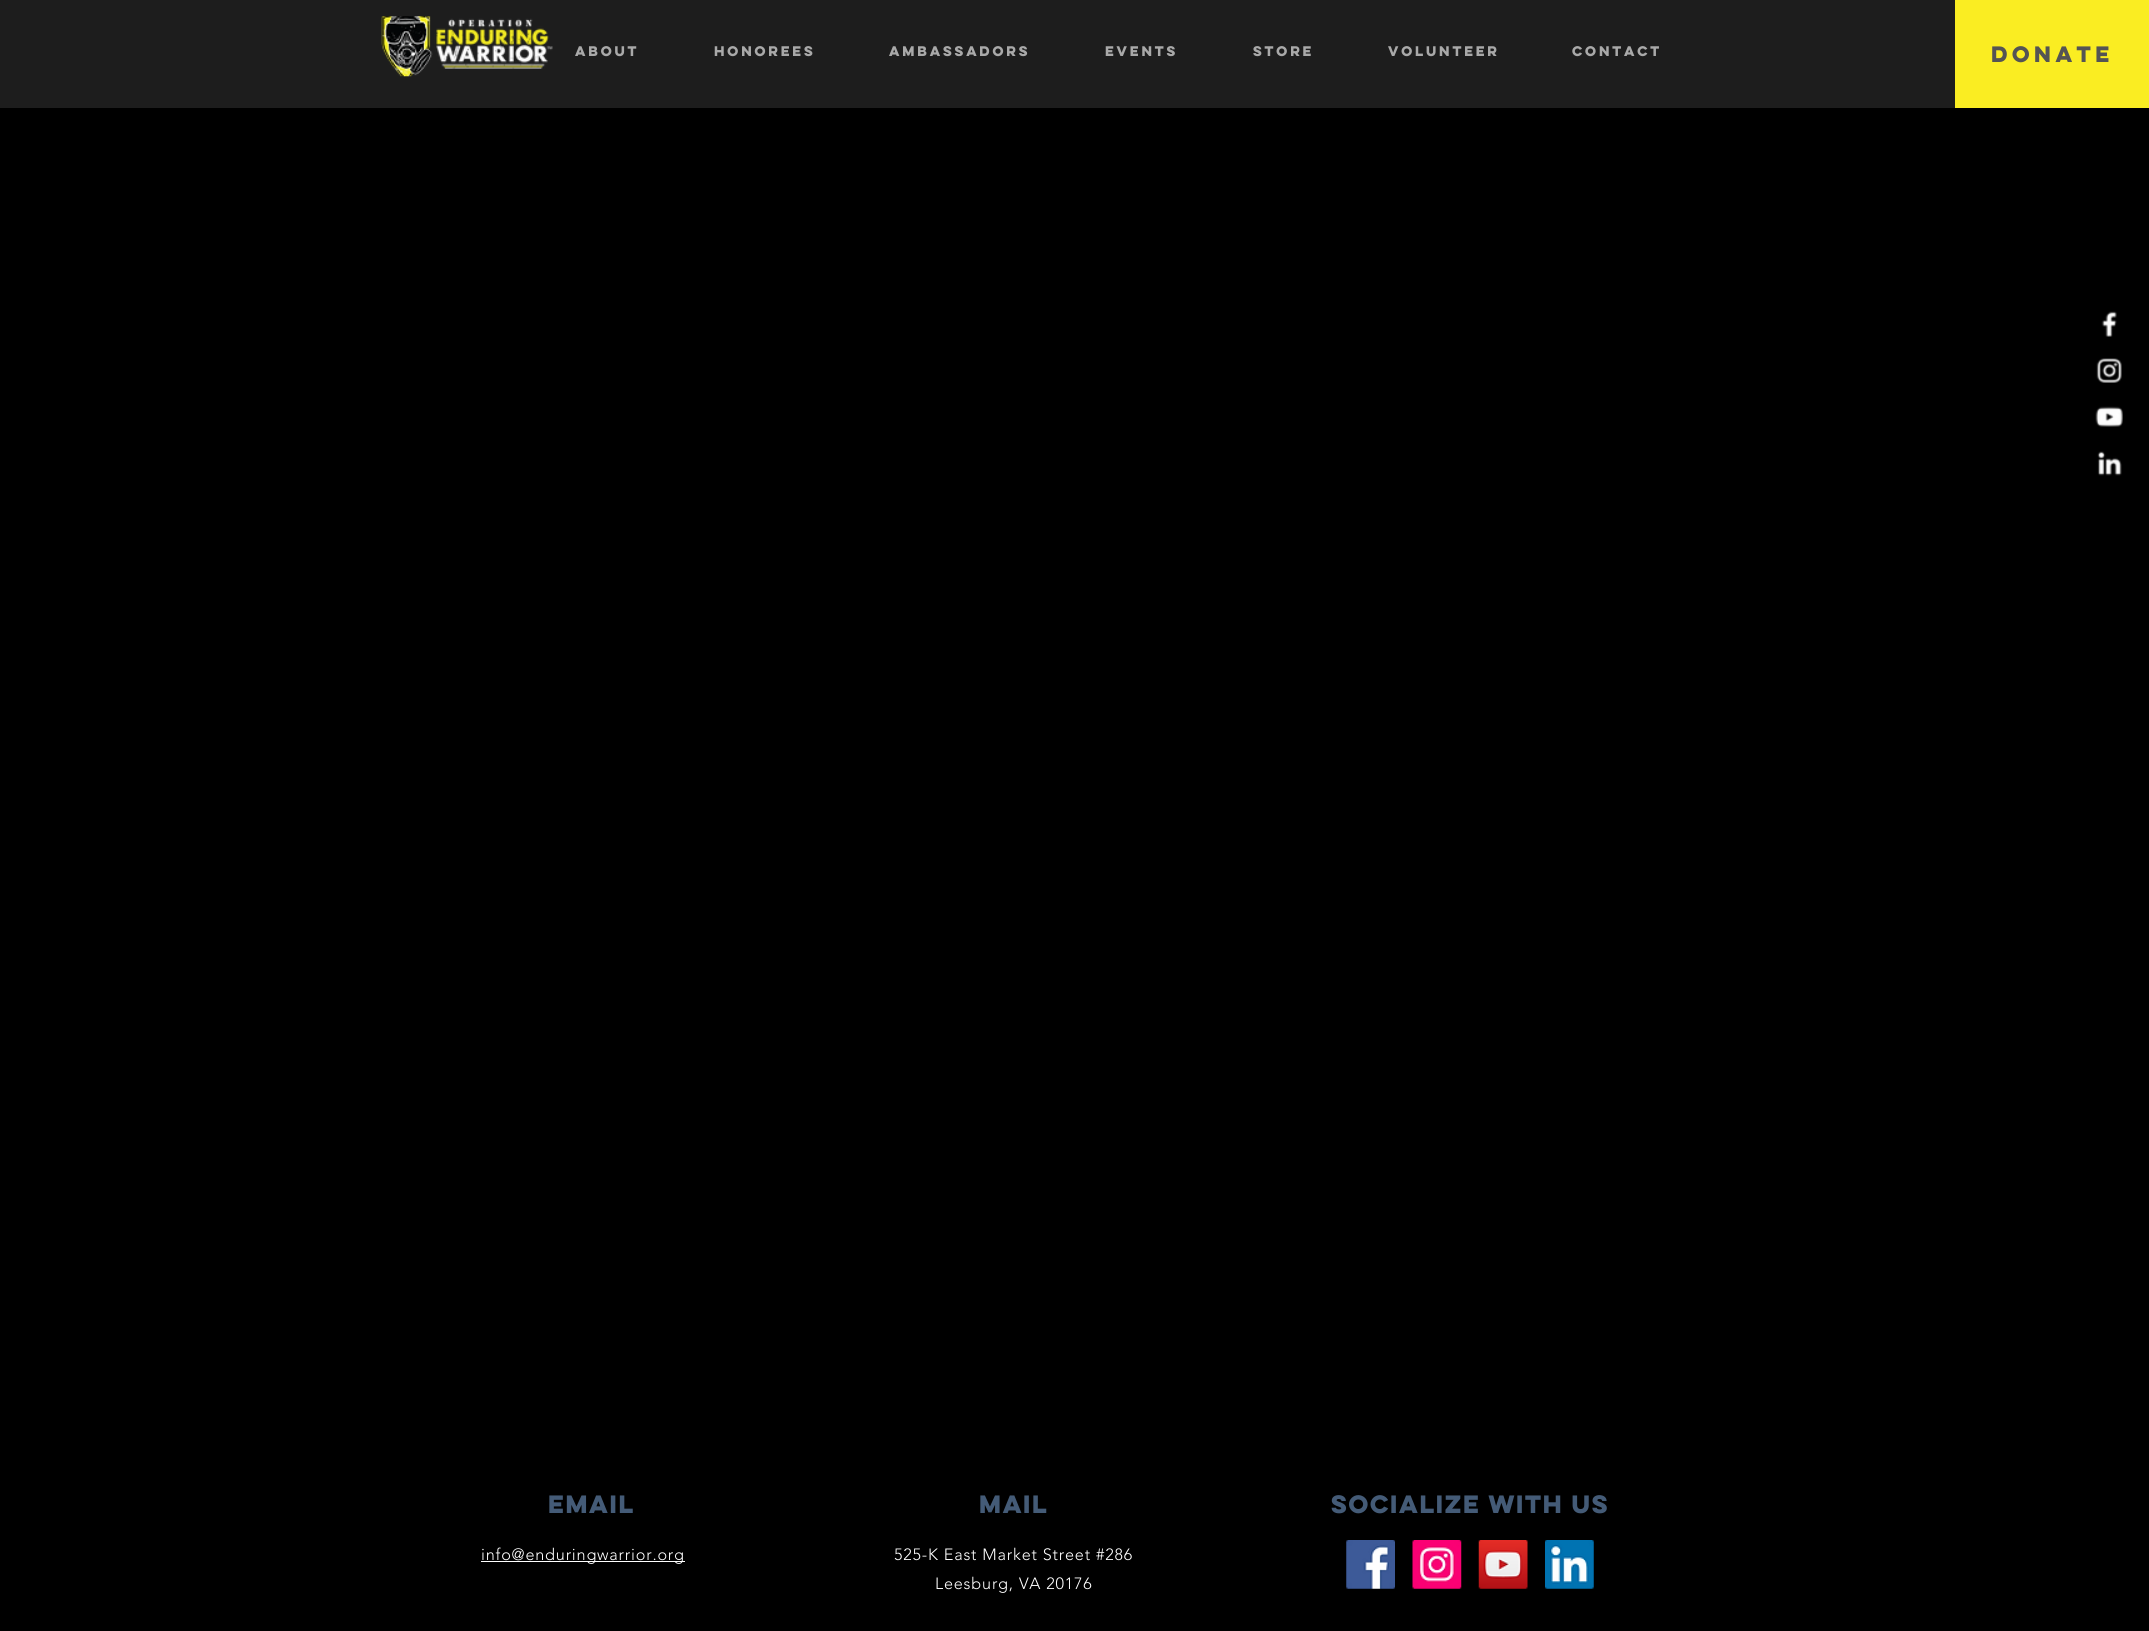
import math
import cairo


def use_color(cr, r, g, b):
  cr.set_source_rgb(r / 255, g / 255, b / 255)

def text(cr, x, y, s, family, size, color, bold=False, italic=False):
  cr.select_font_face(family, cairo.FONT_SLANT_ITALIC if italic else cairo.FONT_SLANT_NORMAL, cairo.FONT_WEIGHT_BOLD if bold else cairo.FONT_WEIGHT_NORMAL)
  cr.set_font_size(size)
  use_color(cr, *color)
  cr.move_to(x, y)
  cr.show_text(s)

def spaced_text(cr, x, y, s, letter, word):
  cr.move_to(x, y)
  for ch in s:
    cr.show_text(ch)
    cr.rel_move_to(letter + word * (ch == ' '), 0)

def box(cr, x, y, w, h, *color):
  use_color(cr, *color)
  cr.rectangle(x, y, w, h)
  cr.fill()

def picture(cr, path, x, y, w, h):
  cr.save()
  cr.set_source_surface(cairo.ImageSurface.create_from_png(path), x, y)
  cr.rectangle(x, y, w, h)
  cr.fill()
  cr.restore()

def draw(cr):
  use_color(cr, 0, 0, 0)
  cr.paint()
  box(cr, 0, 0, 1955, 108, 29, 29, 29)
  picture(cr, "img_01.png", 381, 16, 172, 61)
  box(cr, 1955, 0, 194, 108, 250, 237, 34)
  picture(cr, "img_02.png", 2101, 311, 16, 26)
  picture(cr, "img_03.png", 2096, 358, 26, 25)
  picture(cr, "img_04.png", 2095, 406, 28, 21)
  picture(cr, "img_05.png", 2097, 451, 25, 25)
  box(cr, 481, 1561, 204, 1, 255, 255, 255)
  picture(cr, "img_06.png", 1346, 1540, 49, 49)
  picture(cr, "img_07.png", 1412, 1540, 50, 49)
  picture(cr, "img_08.png", 1478, 1540, 50, 49)
  picture(cr, "img_09.png", 1545, 1540, 49, 49)
  text(cr, 575, 56, "About", "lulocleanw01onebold", 12.5, (169, 169, 169), bold=True)
  text(cr, 714, 56, "Honorees", "lulocleanw01onebold", 12.5, (169, 169, 169), bold=True)
  text(cr, 889, 56, "Ambassadors", "lulocleanw01onebold", 12.5, (169, 169, 169), bold=True)
  text(cr, 1105, 56, "Events", "lulocleanw01onebold", 12.5, (169, 169, 169), bold=True)
  text(cr, 1253, 56, "Store", "lulocleanw01onebold", 12.5, (169, 169, 169), bold=True)
  text(cr, 1388, 56, "Volunteer", "lulocleanw01onebold", 12.5, (169, 169, 169), bold=True)
  text(cr, 1572, 56, "Contact", "lulocleanw01onebold", 12.5, (169, 169, 169), bold=True)
  text(cr, 1991, 62, "DONATE", "lulocleanw01onebold", 20, (84, 84, 84), bold=True)
  cr.set_font_size(22.5)
  use_color(cr, 68, 91, 119)
  spaced_text(cr, 548, 1513, "EMAIL", -3.4, 0)
  cr.select_font_face("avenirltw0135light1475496 Light")
  cr.set_font_size(16.25)
  use_color(cr, 255, 255, 255)
  spaced_text(cr, 481, 1560, "info@enduringwarrior.org", 0.8, 0)
  cr.select_font_face("lulocleanw01onebold", cairo.FONT_SLANT_NORMAL, cairo.FONT_WEIGHT_BOLD)
  cr.set_font_size(22.5)
  use_color(cr, 68, 91, 119)
  spaced_text(cr, 979, 1513, "mAIL", -3.4, 0)
  cr.select_font_face("avenirltw0135light1475496 Light")
  cr.set_font_size(16.25)
  use_color(cr, 255, 255, 255)
  spaced_text(cr, 894, 1560, "525-K East Market Street #286", 0.8, 0)
  spaced_text(cr, 935, 1589, "Leesburg, VA 20176", 0.8, 0)
  cr.select_font_face("lulocleanw01onebold", cairo.FONT_SLANT_NORMAL, cairo.FONT_WEIGHT_BOLD)
  cr.set_font_size(22.5)
  use_color(cr, 68, 91, 119)
  spaced_text(cr, 1331, 1513, "socialize with us", -3.4, 0)


surface = cairo.ImageSurface(cairo.FORMAT_RGB24, 2149, 1631)
cr = cairo.Context(surface)
options = cairo.FontOptions()
options.set_hint_metrics(cairo.HINT_METRICS_OFF)
options.set_hint_style(cairo.HINT_STYLE_NONE)
cr.set_font_options(options)
cr.set_miter_limit(4)
draw(cr)
surface.write_to_png("out.png")
